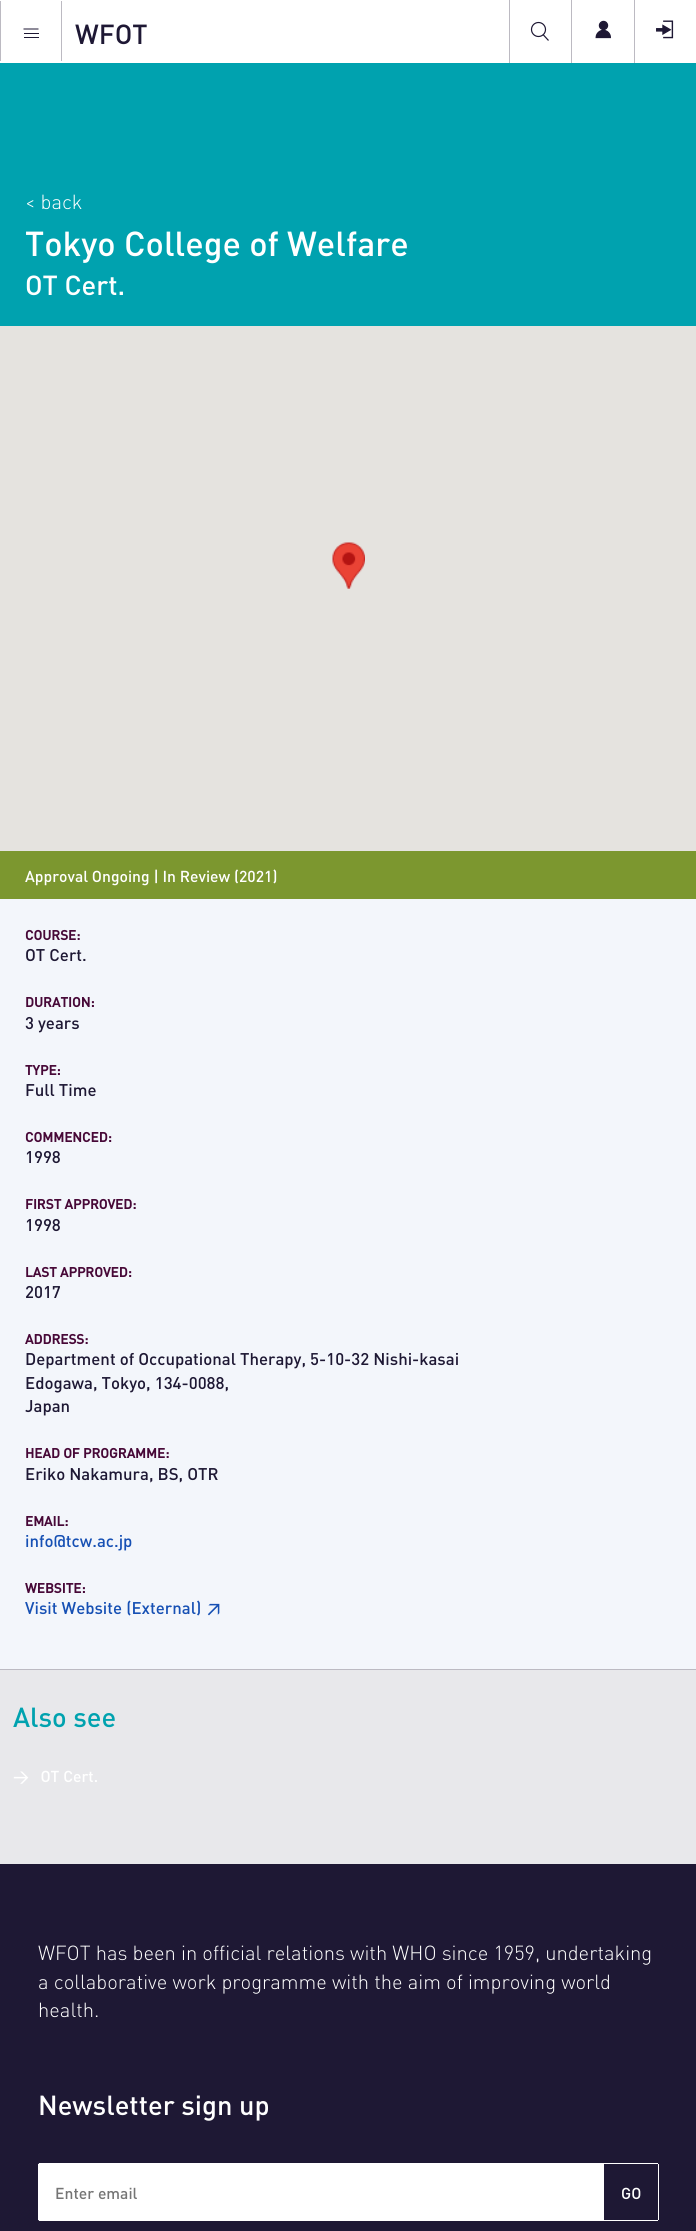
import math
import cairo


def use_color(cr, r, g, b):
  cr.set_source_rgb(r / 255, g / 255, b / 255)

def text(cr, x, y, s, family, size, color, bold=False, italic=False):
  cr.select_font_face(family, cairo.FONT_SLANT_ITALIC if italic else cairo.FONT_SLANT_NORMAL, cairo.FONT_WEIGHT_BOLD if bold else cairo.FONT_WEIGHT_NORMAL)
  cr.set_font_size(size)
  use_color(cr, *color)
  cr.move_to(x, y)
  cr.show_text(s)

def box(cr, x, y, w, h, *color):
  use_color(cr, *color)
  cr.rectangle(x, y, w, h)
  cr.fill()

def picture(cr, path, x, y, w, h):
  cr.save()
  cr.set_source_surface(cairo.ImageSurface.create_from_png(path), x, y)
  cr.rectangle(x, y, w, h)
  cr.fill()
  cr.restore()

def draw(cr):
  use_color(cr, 255, 255, 255)
  cr.paint()
  box(cr, 61, 1, 1, 60, 188, 186, 194)
  box(cr, 0, 1, 1, 60, 188, 186, 194)
  cr.new_path()
  cr.move_to(23.5, 29)
  cr.line_to(38.5, 29)
  use_color(cr, 30, 24, 52)
  cr.set_line_width(1)
  cr.stroke()
  box(cr, 24, 33, 15, 1, 30, 24, 52)
  box(cr, 24, 37, 15, 1, 30, 24, 52)
  box(cr, 509, 0, 1, 63, 188, 186, 194)
  cr.arc(538.5, 29.5, 7, 0, 2 * math.pi)
  use_color(cr, 30, 24, 52)
  cr.set_line_width(1.2)
  cr.stroke()
  cr.new_path()
  cr.move_to(543, 34.5)
  cr.line_to(548.5, 40.5)
  cr.stroke()
  box(cr, 571, 0, 1, 63, 188, 186, 194)
  picture(cr, "img_01.png", 595, 20, 16, 19)
  box(cr, 634, 0, 1, 63, 188, 186, 194)
  picture(cr, "img_02.png", 656, 20, 18, 19)
  box(cr, 0, 1670, 696, 194, 232, 232, 235)
  box(cr, 0, 63, 696, 263, 0, 162, 175)
  box(cr, 0, 326, 696, 525, 229, 227, 223)
  picture(cr, "img_03.png", 332, 542, 33, 47)
  box(cr, 0, 851, 696, 48, 124, 151, 47)
  box(cr, 0, 899, 696, 770, 243, 246, 251)
  box(cr, 0, 1669, 696, 1, 188, 186, 194)
  box(cr, 0, 1864, 696, 367, 30, 24, 52)
  use_color(cr, 255, 255, 255)
  cr.new_path()
  cr.move_to(40.5, 2163)
  cr.line_to(604, 2163)
  cr.line_to(604, 2221)
  cr.line_to(40.5, 2221)
  cr.curve_to(39, 2221, 38, 2220, 38, 2218.5)
  cr.line_to(38, 2165.5)
  cr.curve_to(38, 2164, 39, 2163, 40.5, 2163)
  cr.close_path()
  cr.fill()
  box(cr, 39, 2163, 2, 1, 255, 255, 255)
  box(cr, 39, 2220, 2, 1, 255, 255, 255)
  box(cr, 38, 2164, 1, 56, 255, 255, 255)
  box(cr, 604, 2163, 54, 1, 255, 255, 255)
  box(cr, 658, 2164, 1, 56, 255, 255, 255)
  box(cr, 604, 2220, 54, 1, 255, 255, 255)
  text(cr, 75, 44, "WFOT", "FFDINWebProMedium", 27.25, (30, 24, 52))
  text(cr, 25, 209, "< back", "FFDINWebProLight", 20.15, (255, 255, 255))
  text(cr, 25, 256, "Tokyo College of Welfare", "FFDINWebProMedium", 34.25, (255, 255, 255))
  text(cr, 25, 295, "OT Cert.", "FFDINWebProMedium", 27.25, (255, 255, 255))
  text(cr, 25, 882, "Approval Ongoing | In Review (2021)", "FFDINWebProMedium", 15.7, (255, 255, 255))
  text(cr, 25, 940, "COURSE:", "FFDINWebProMedium", 13.5, (71, 8, 55), bold=True)
  text(cr, 25, 961, "OT Cert.", "FFDINWebProMedium", 16.8, (30, 24, 52))
  text(cr, 25, 1007, "DURATION:", "FFDINWebProMedium", 13.5, (71, 8, 55), bold=True)
  text(cr, 25, 1029, "3 years", "FFDINWebProMedium", 16.8, (30, 24, 52))
  text(cr, 25, 1075, "TYPE:", "FFDINWebProMedium", 13.5, (71, 8, 55), bold=True)
  text(cr, 25, 1096, "Full Time", "FFDINWebProMedium", 16.8, (30, 24, 52))
  text(cr, 25, 1142, "COMMENCED:", "FFDINWebProMedium", 13.5, (71, 8, 55), bold=True)
  text(cr, 25, 1163, "1998", "FFDINWebProMedium", 16.8, (30, 24, 52))
  text(cr, 25, 1209, "FIRST APPROVED:", "FFDINWebProMedium", 13.5, (71, 8, 55), bold=True)
  text(cr, 25, 1231, "1998", "FFDINWebProMedium", 16.8, (30, 24, 52))
  text(cr, 25, 1277, "LAST APPROVED:", "FFDINWebProMedium", 13.5, (71, 8, 55), bold=True)
  text(cr, 25, 1298, "2017", "FFDINWebProMedium", 16.8, (30, 24, 52))
  text(cr, 25, 1344, "ADDRESS:", "FFDINWebProMedium", 13.5, (71, 8, 55), bold=True)
  text(cr, 25, 1365, "Department of Occupational Therapy, 5-10-32 Nishi-kasai", "FFDINWebProMedium", 16.8, (30, 24, 52))
  text(cr, 25, 1389, "Edogawa, Tokyo, 134-0088,", "FFDINWebProMedium", 16.8, (30, 24, 52))
  text(cr, 25, 1412, "Japan", "FFDINWebProMedium", 16.8, (30, 24, 52))
  text(cr, 25, 1458, "HEAD OF PROGRAMME:", "FFDINWebProMedium", 13.5, (71, 8, 55), bold=True)
  text(cr, 25, 1480, "Eriko Nakamura, BS, OTR", "FFDINWebProMedium", 16.8, (30, 24, 52))
  text(cr, 25, 1526, "EMAIL:", "FFDINWebProMedium", 13.5, (71, 8, 55), bold=True)
  text(cr, 25, 1547, "info@tcw.ac.jp", "FFDINWebProMedium", 16.8, (22, 80, 180))
  text(cr, 25, 1593, "WEBSITE:", "FFDINWebProMedium", 13.5, (71, 8, 55), bold=True)
  text(cr, 25, 1614, "Visit Website (External) ↗", "FFDINWebProMedium", 16.8, (22, 80, 180))
  text(cr, 13, 1727, "Also see", "FFDINWebProMedium", 27.25, (0, 162, 175))
  text(cr, 13, 1782, "→   OT Cert.", "FFDINWebProMedium", 15.7, (255, 255, 255))
  text(cr, 38, 1960, "WFOT has been in official relations with WHO since 1959, undertaking", "FFDINWebProLight", 20.15, (255, 255, 255))
  text(cr, 38, 1989, "a collaborative work programme with the aim of improving world", "FFDINWebProLight", 20.15, (255, 255, 255))
  text(cr, 38, 2017, "health.", "FFDINWebProLight", 20.15, (255, 255, 255))
  text(cr, 38, 2115, "Newsletter sign up", "FFDINWebProMedium", 27.25, (255, 255, 255))
  text(cr, 55, 2199, "Enter email", "FFDINWebProMedium", 15.7, (117, 117, 117))
  text(cr, 621, 2199, "GO", "FFDINWebProMedium", 15.7, (255, 255, 255))


surface = cairo.ImageSurface(cairo.FORMAT_RGB24, 696, 2231)
cr = cairo.Context(surface)
options = cairo.FontOptions()
options.set_hint_metrics(cairo.HINT_METRICS_OFF)
options.set_hint_style(cairo.HINT_STYLE_NONE)
cr.set_font_options(options)
cr.set_miter_limit(4)
draw(cr)
surface.write_to_png("out.png")
